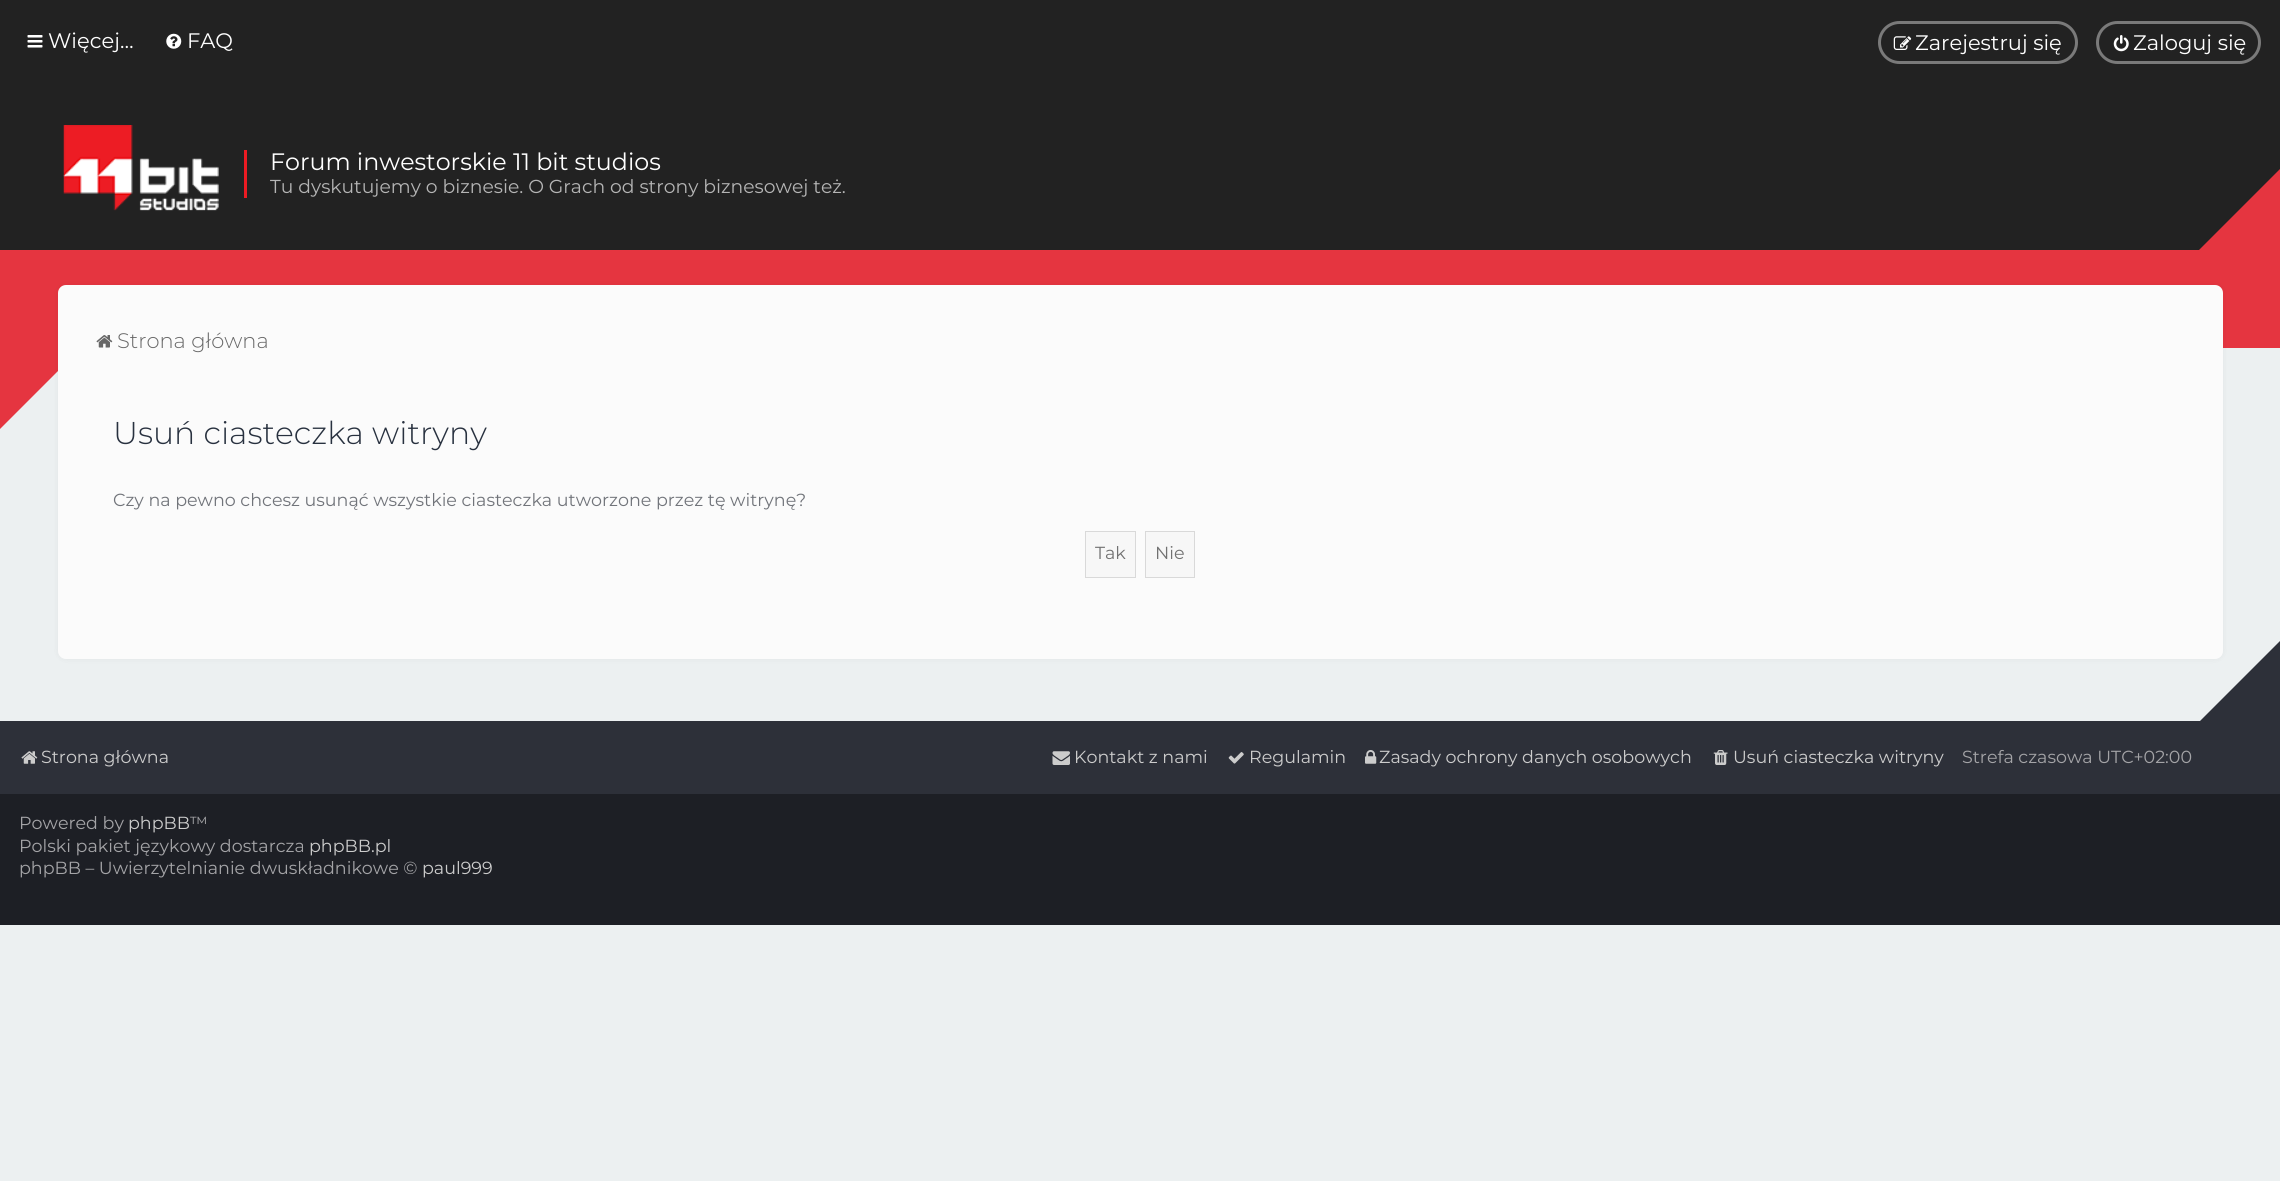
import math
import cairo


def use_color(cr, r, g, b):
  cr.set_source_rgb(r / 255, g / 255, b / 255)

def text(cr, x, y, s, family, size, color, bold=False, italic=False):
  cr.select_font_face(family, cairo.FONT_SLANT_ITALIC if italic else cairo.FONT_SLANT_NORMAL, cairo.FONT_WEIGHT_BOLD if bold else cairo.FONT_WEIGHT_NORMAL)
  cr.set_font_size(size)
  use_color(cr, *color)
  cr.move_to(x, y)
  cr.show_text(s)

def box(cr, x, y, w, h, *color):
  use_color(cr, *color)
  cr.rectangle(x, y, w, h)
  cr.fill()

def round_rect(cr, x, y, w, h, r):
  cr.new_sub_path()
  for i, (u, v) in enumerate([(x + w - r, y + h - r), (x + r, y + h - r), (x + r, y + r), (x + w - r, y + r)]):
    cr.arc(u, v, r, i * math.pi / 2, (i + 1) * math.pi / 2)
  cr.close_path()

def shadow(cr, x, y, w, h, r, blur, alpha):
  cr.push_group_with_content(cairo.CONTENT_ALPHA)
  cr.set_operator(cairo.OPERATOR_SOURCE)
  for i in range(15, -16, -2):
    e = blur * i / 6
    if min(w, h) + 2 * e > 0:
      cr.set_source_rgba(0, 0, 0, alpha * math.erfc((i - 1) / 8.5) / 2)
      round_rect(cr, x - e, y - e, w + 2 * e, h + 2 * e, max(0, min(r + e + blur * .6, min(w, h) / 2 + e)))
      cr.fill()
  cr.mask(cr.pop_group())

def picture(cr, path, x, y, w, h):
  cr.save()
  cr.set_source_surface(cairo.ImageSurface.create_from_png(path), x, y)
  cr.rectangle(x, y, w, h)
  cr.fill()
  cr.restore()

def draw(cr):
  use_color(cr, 236, 240, 241)
  cr.paint()
  box(cr, 0, 0, 2280, 250, 34, 34, 34)
  picture(cr, "img_01.png", 27, 35, 16, 13)
  picture(cr, "img_02.png", 166, 33, 16, 16)
  round_rect(cr, 1879.5, 22.5, 197, 40, 20)
  use_color(cr, 122, 122, 122)
  cr.set_line_width(3)
  cr.stroke()
  picture(cr, "img_03.png", 1893, 36, 19, 14)
  round_rect(cr, 2097.5, 22.5, 162, 40, 20)
  cr.stroke()
  picture(cr, "img_04.png", 2113, 35, 16, 17)
  picture(cr, "img_05.png", 63, 125, 156, 86)
  box(cr, 244, 150, 3, 48, 236, 27, 35)
  box(cr, 0, 250, 2280, 98, 229, 53, 64)
  cr.new_path()
  cr.move_to(2280, 169)
  cr.line_to(2280, 331)
  cr.line_to(2199, 250)
  cr.close_path()
  cr.fill()
  cr.new_path()
  cr.move_to(0, 348)
  cr.line_to(81, 348)
  cr.line_to(0, 429)
  cr.close_path()
  cr.fill()
  box(cr, 0, 721, 2280, 73, 45, 48, 57)
  cr.new_path()
  cr.move_to(2280, 641)
  cr.line_to(2280, 722)
  cr.line_to(2199, 722)
  cr.close_path()
  cr.fill()
  use_color(cr, 0, 0, 0)
  shadow(cr, 58, 285, 2165, 374, 8, 3, 0.05)
  use_color(cr, 251, 251, 251)
  round_rect(cr, 58, 285, 2165, 374, 8)
  cr.fill()
  picture(cr, "img_06.png", 96, 335, 17, 13)
  use_color(cr, 247, 247, 247)
  cr.rectangle(1085.5, 531.5, 50, 46)
  cr.fill_preserve()
  use_color(cr, 217, 217, 217)
  cr.set_line_width(1)
  cr.stroke()
  use_color(cr, 247, 247, 247)
  cr.rectangle(1145.5, 531.5, 49, 46)
  cr.fill_preserve()
  use_color(cr, 217, 217, 217)
  cr.stroke()
  picture(cr, "img_07.png", 21, 751, 17, 13)
  picture(cr, "img_08.png", 1052, 751, 18, 14)
  picture(cr, "img_09.png", 1228, 752, 16, 12)
  picture(cr, "img_10.png", 1365, 750, 12, 14)
  picture(cr, "img_11.png", 1713, 750, 15, 15)
  box(cr, 0, 794, 2280, 131, 29, 31, 37)
  text(cr, 48, 48, "Więcej…", "Montserrat", 21, (255, 255, 255))
  text(cr, 187, 48, "FAQ", "Montserrat", 21, (255, 255, 255))
  text(cr, 1915, 50, "Zarejestruj się", "Montserrat", 21, (255, 255, 255))
  text(cr, 2133, 50, "Zaloguj się", "Montserrat", 21, (255, 255, 255))
  text(cr, 270, 170, "Forum inwestorskie 11 bit studios", "Montserrat", 23.75, (255, 255, 255))
  text(cr, 270, 193, "Tu dyskutujemy o biznesie. O Grach od strony biznesowej też.", "Montserrat", 18.75, (181, 181, 181))
  text(cr, 117, 348, "Strona główna", "Montserrat Light", 21, (103, 103, 103))
  text(cr, 113, 444, "Usuń ciasteczka witryny", "Montserrat Light", 31.5, (40, 49, 63))
  text(cr, 113, 506, "Czy na pewno chcesz usunąć wszystkie ciasteczka utworzone przez tę witrynę?", "Montserrat", 17.5, (113, 116, 122))
  text(cr, 1095, 559, "Tak", "Montserrat", 17.5, (113, 113, 113))
  text(cr, 1155, 559, "Nie", "Montserrat", 17.5, (113, 113, 113))
  text(cr, 41, 763, "Strona główna", "Montserrat", 17.5, (204, 204, 204))
  text(cr, 1074, 763, "Kontakt z nami", "Montserrat", 17.5, (204, 204, 204))
  text(cr, 1249, 763, "Regulamin", "Montserrat", 17.5, (204, 204, 204))
  text(cr, 1379, 763, "Zasady ochrony danych osobowych", "Montserrat", 17.5, (204, 204, 204))
  text(cr, 1733, 763, "Usuń ciasteczka witryny", "Montserrat", 17.5, (204, 204, 204))
  text(cr, 1962, 763, "Strefa czasowa UTC+02:00", "Montserrat", 17.5, (164, 164, 167))
  text(cr, 19, 829, "Powered by", "Montserrat", 17.5, (164, 164, 167))
  text(cr, 128, 829, "phpBB", "Montserrat", 17.5, (204, 204, 204))
  text(cr, 190, 829, "™", "Montserrat", 17.5, (164, 164, 167))
  text(cr, 19, 852, "Polski pakiet językowy dostarcza", "Montserrat", 17.5, (164, 164, 167))
  text(cr, 309, 852, "phpBB.pl", "Montserrat", 17.5, (204, 204, 204))
  text(cr, 19, 874, "phpBB – Uwierzytelnianie dwuskładnikowe ©", "Montserrat", 17.5, (164, 164, 167))
  text(cr, 422, 874, "paul999", "Montserrat", 17.5, (204, 204, 204))


surface = cairo.ImageSurface(cairo.FORMAT_RGB24, 2280, 1181)
cr = cairo.Context(surface)
options = cairo.FontOptions()
options.set_hint_metrics(cairo.HINT_METRICS_OFF)
options.set_hint_style(cairo.HINT_STYLE_NONE)
cr.set_font_options(options)
cr.set_miter_limit(4)
draw(cr)
surface.write_to_png("out.png")
